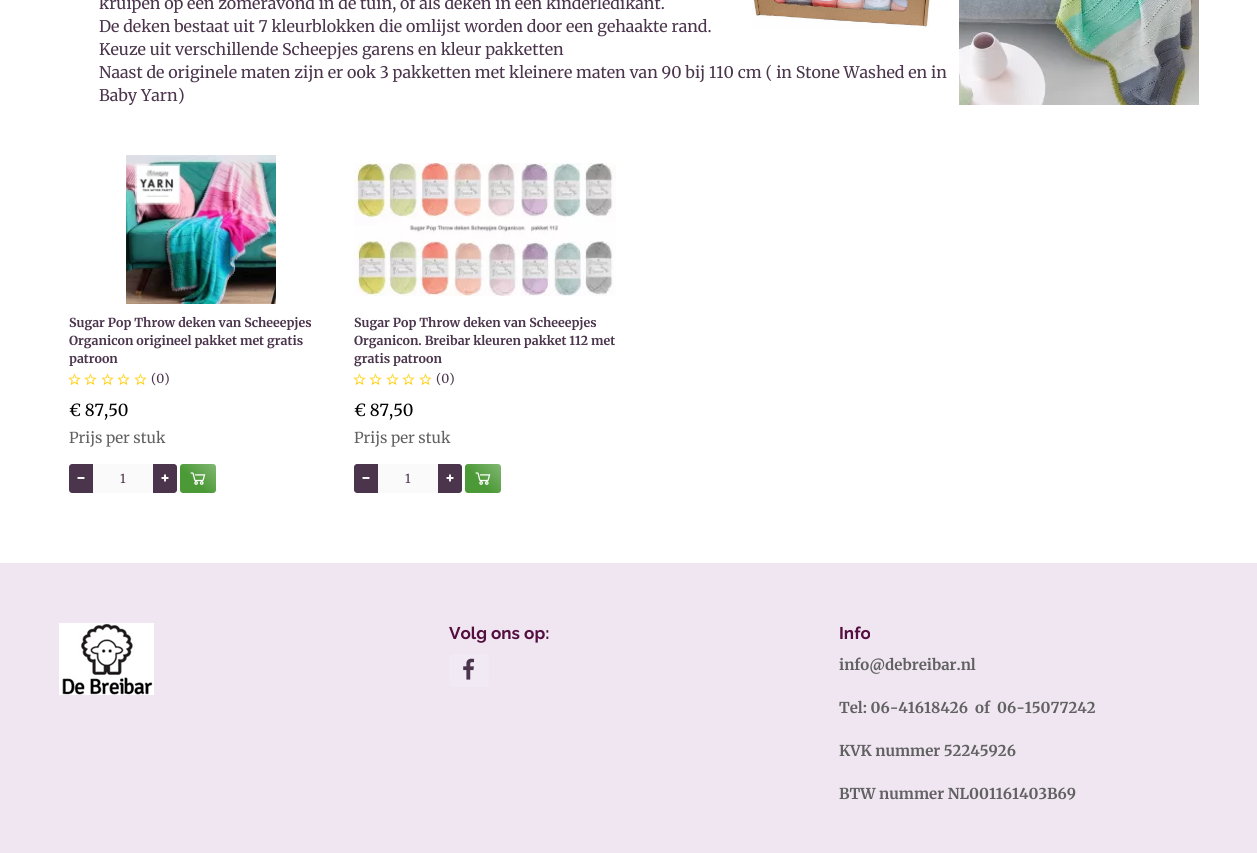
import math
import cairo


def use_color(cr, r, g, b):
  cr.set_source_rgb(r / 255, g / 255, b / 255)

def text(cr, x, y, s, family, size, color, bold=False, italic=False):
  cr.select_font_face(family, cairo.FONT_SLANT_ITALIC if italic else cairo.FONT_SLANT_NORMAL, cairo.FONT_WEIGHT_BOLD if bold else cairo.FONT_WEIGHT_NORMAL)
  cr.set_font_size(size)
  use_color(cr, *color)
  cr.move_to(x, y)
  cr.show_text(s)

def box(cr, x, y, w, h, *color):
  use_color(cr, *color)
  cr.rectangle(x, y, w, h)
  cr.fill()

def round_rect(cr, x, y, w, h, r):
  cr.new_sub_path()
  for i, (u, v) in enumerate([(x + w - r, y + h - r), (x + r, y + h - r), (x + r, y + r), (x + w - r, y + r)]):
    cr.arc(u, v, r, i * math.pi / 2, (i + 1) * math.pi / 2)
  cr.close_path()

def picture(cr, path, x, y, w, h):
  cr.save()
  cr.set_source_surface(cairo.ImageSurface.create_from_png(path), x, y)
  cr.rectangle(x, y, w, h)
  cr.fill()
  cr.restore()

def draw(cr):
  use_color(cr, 255, 255, 255)
  cr.paint()
  picture(cr, "img_01.png", 752, 0, 178, 28)
  picture(cr, "img_02.png", 959, 0, 240, 105)
  picture(cr, "img_03.png", 126, 155, 150, 149)
  picture(cr, "img_04.png", 68, 373, 13, 12)
  picture(cr, "img_04.png", 84, 373, 13, 12)
  picture(cr, "img_04.png", 101, 373, 13, 12)
  picture(cr, "img_04.png", 117, 373, 13, 12)
  picture(cr, "img_04.png", 134, 373, 13, 12)
  use_color(cr, 75, 53, 77)
  cr.new_path()
  cr.move_to(72, 464)
  cr.line_to(93, 464)
  cr.line_to(93, 493)
  cr.line_to(72, 493)
  cr.curve_to(70.5, 493, 69, 491.5, 69, 490)
  cr.line_to(69, 467)
  cr.curve_to(69, 465.5, 70.5, 464, 72, 464)
  cr.close_path()
  cr.fill()
  picture(cr, "img_05.png", 77, 477, 8, 2)
  box(cr, 93, 464, 60, 29, 250, 250, 250)
  use_color(cr, 75, 53, 77)
  cr.new_path()
  cr.move_to(153, 464)
  cr.line_to(174, 464)
  cr.curve_to(175.5, 464, 177, 465.5, 177, 467)
  cr.line_to(177, 490)
  cr.curve_to(177, 491.5, 175.5, 493, 174, 493)
  cr.line_to(153, 493)
  cr.close_path()
  cr.fill()
  picture(cr, "img_06.png", 161, 474, 8, 8)
  use_color(cr, 76, 153, 55)
  round_rect(cr, 180, 464, 36, 29, 3)
  cr.fill()
  picture(cr, "img_07.png", 190, 472, 16, 13)
  gradient = cairo.LinearGradient(214, 462, 182, 495)
  gradient.add_color_stop_rgba(0, 1, 1, 1, 0.3)
  gradient.add_color_stop_rgba(0.6, 1, 1, 1, 0)
  cr.set_source(gradient)
  cr.rectangle(181, 464, 35, 29)
  cr.fill()
  picture(cr, "img_08.png", 354, 163, 262, 133)
  picture(cr, "img_04.png", 353, 373, 13, 12)
  picture(cr, "img_04.png", 369, 373, 13, 12)
  picture(cr, "img_04.png", 386, 373, 13, 12)
  picture(cr, "img_04.png", 402, 373, 13, 12)
  picture(cr, "img_04.png", 419, 373, 13, 12)
  use_color(cr, 75, 53, 77)
  cr.new_path()
  cr.move_to(357, 464)
  cr.line_to(378, 464)
  cr.line_to(378, 493)
  cr.line_to(357, 493)
  cr.curve_to(355.5, 493, 354, 491.5, 354, 490)
  cr.line_to(354, 467)
  cr.curve_to(354, 465.5, 355.5, 464, 357, 464)
  cr.close_path()
  cr.fill()
  picture(cr, "img_05.png", 362, 477, 8, 2)
  box(cr, 378, 464, 60, 29, 250, 250, 250)
  use_color(cr, 75, 53, 77)
  cr.new_path()
  cr.move_to(438, 464)
  cr.line_to(459, 464)
  cr.curve_to(460.5, 464, 462, 465.5, 462, 467)
  cr.line_to(462, 490)
  cr.curve_to(462, 491.5, 460.5, 493, 459, 493)
  cr.line_to(438, 493)
  cr.close_path()
  cr.fill()
  picture(cr, "img_06.png", 446, 474, 8, 8)
  use_color(cr, 76, 153, 55)
  round_rect(cr, 465, 464, 36, 29, 3)
  cr.fill()
  picture(cr, "img_07.png", 475, 472, 16, 13)
  gradient = cairo.LinearGradient(499, 462, 467, 495)
  gradient.add_color_stop_rgba(0, 1, 1, 1, 0.3)
  gradient.add_color_stop_rgba(0.6, 1, 1, 1, 0)
  cr.set_source(gradient)
  cr.rectangle(466, 464, 35, 29)
  cr.fill()
  box(cr, 0, 563, 1257, 290, 239, 230, 242)
  picture(cr, "img_09.png", 59, 623, 95, 72)
  use_color(cr, 241, 233, 243)
  round_rect(cr, 449, 654, 40, 33, 3)
  cr.fill()
  picture(cr, "img_10.png", 463, 658, 12, 22)
  text(cr, 99, 9, "kruipen op een zomeravond in de tuin, of als deken in een kinderledikant.", "Merriweather", 16, (75, 53, 77))
  text(cr, 99, 32, "De deken bestaat uit 7 kleurblokken die omlijst worden door een gehaakte rand.", "Merriweather", 16, (75, 53, 77))
  text(cr, 99, 55, "Keuze uit verschillende Scheepjes garens en kleur pakketten", "Merriweather", 16, (75, 53, 77))
  text(cr, 99, 78, "Naast de originele maten zijn er ook 3 pakketten met kleinere maten van 90 bij 110 cm ( in Stone Washed en in", "Merriweather", 16, (75, 53, 77))
  text(cr, 99, 101, "Baby Yarn)", "Merriweather", 16, (75, 53, 77))
  text(cr, 69, 327, "Sugar Pop Throw deken van Scheeepjes", "Merriweather", 12.4, (75, 53, 77), bold=True)
  text(cr, 69, 345, "Organicon origineel pakket met gratis", "Merriweather", 12.4, (75, 53, 77), bold=True)
  text(cr, 69, 363, "patroon", "Merriweather", 12.4, (75, 53, 77), bold=True)
  text(cr, 151, 383, "(0)", "Merriweather", 12.4, (75, 53, 77))
  text(cr, 69, 416, "€ 87,50", "Merriweather", 16.5, (0, 0, 0))
  text(cr, 69, 443, "Prijs per stuk", "Merriweather", 15, (97, 97, 97))
  text(cr, 120, 483, "1", "Merriweather", 12.4, (75, 53, 77))
  text(cr, 354, 327, "Sugar Pop Throw deken van Scheeepjes", "Merriweather", 12.4, (75, 53, 77), bold=True)
  text(cr, 354, 345, "Organicon. Breibar kleuren pakket 112 met", "Merriweather", 12.4, (75, 53, 77), bold=True)
  text(cr, 354, 363, "gratis patroon", "Merriweather", 12.4, (75, 53, 77), bold=True)
  text(cr, 436, 383, "(0)", "Merriweather", 12.4, (75, 53, 77))
  text(cr, 354, 416, "€ 87,50", "Merriweather", 16.5, (0, 0, 0))
  text(cr, 354, 443, "Prijs per stuk", "Merriweather", 15, (97, 97, 97))
  text(cr, 405, 483, "1", "Merriweather", 12.4, (75, 53, 77))
  text(cr, 449, 639, "Volg ons op:", "Raleway", 17, (84, 15, 63), bold=True)
  text(cr, 839, 639, "Info", "Raleway", 17, (84, 15, 63), bold=True)
  text(cr, 839, 670, "info@debreibar.nl", "Merriweather", 15, (97, 97, 97), bold=True)
  text(cr, 839, 713, "Tel: 06-41618426", "Merriweather", 15, (97, 97, 97), bold=True)
  text(cr, 975, 713, "of  06-15077242", "Merriweather", 15, (97, 97, 97), bold=True)
  text(cr, 839, 756, "KVK nummer 52245926", "Merriweather", 15, (97, 97, 97), bold=True)
  text(cr, 839, 799, "BTW nummer NL001161403B69", "Merriweather", 15, (97, 97, 97), bold=True)


surface = cairo.ImageSurface(cairo.FORMAT_RGB24, 1257, 853)
cr = cairo.Context(surface)
options = cairo.FontOptions()
options.set_hint_metrics(cairo.HINT_METRICS_OFF)
options.set_hint_style(cairo.HINT_STYLE_NONE)
cr.set_font_options(options)
cr.set_miter_limit(4)
draw(cr)
surface.write_to_png("out.png")
